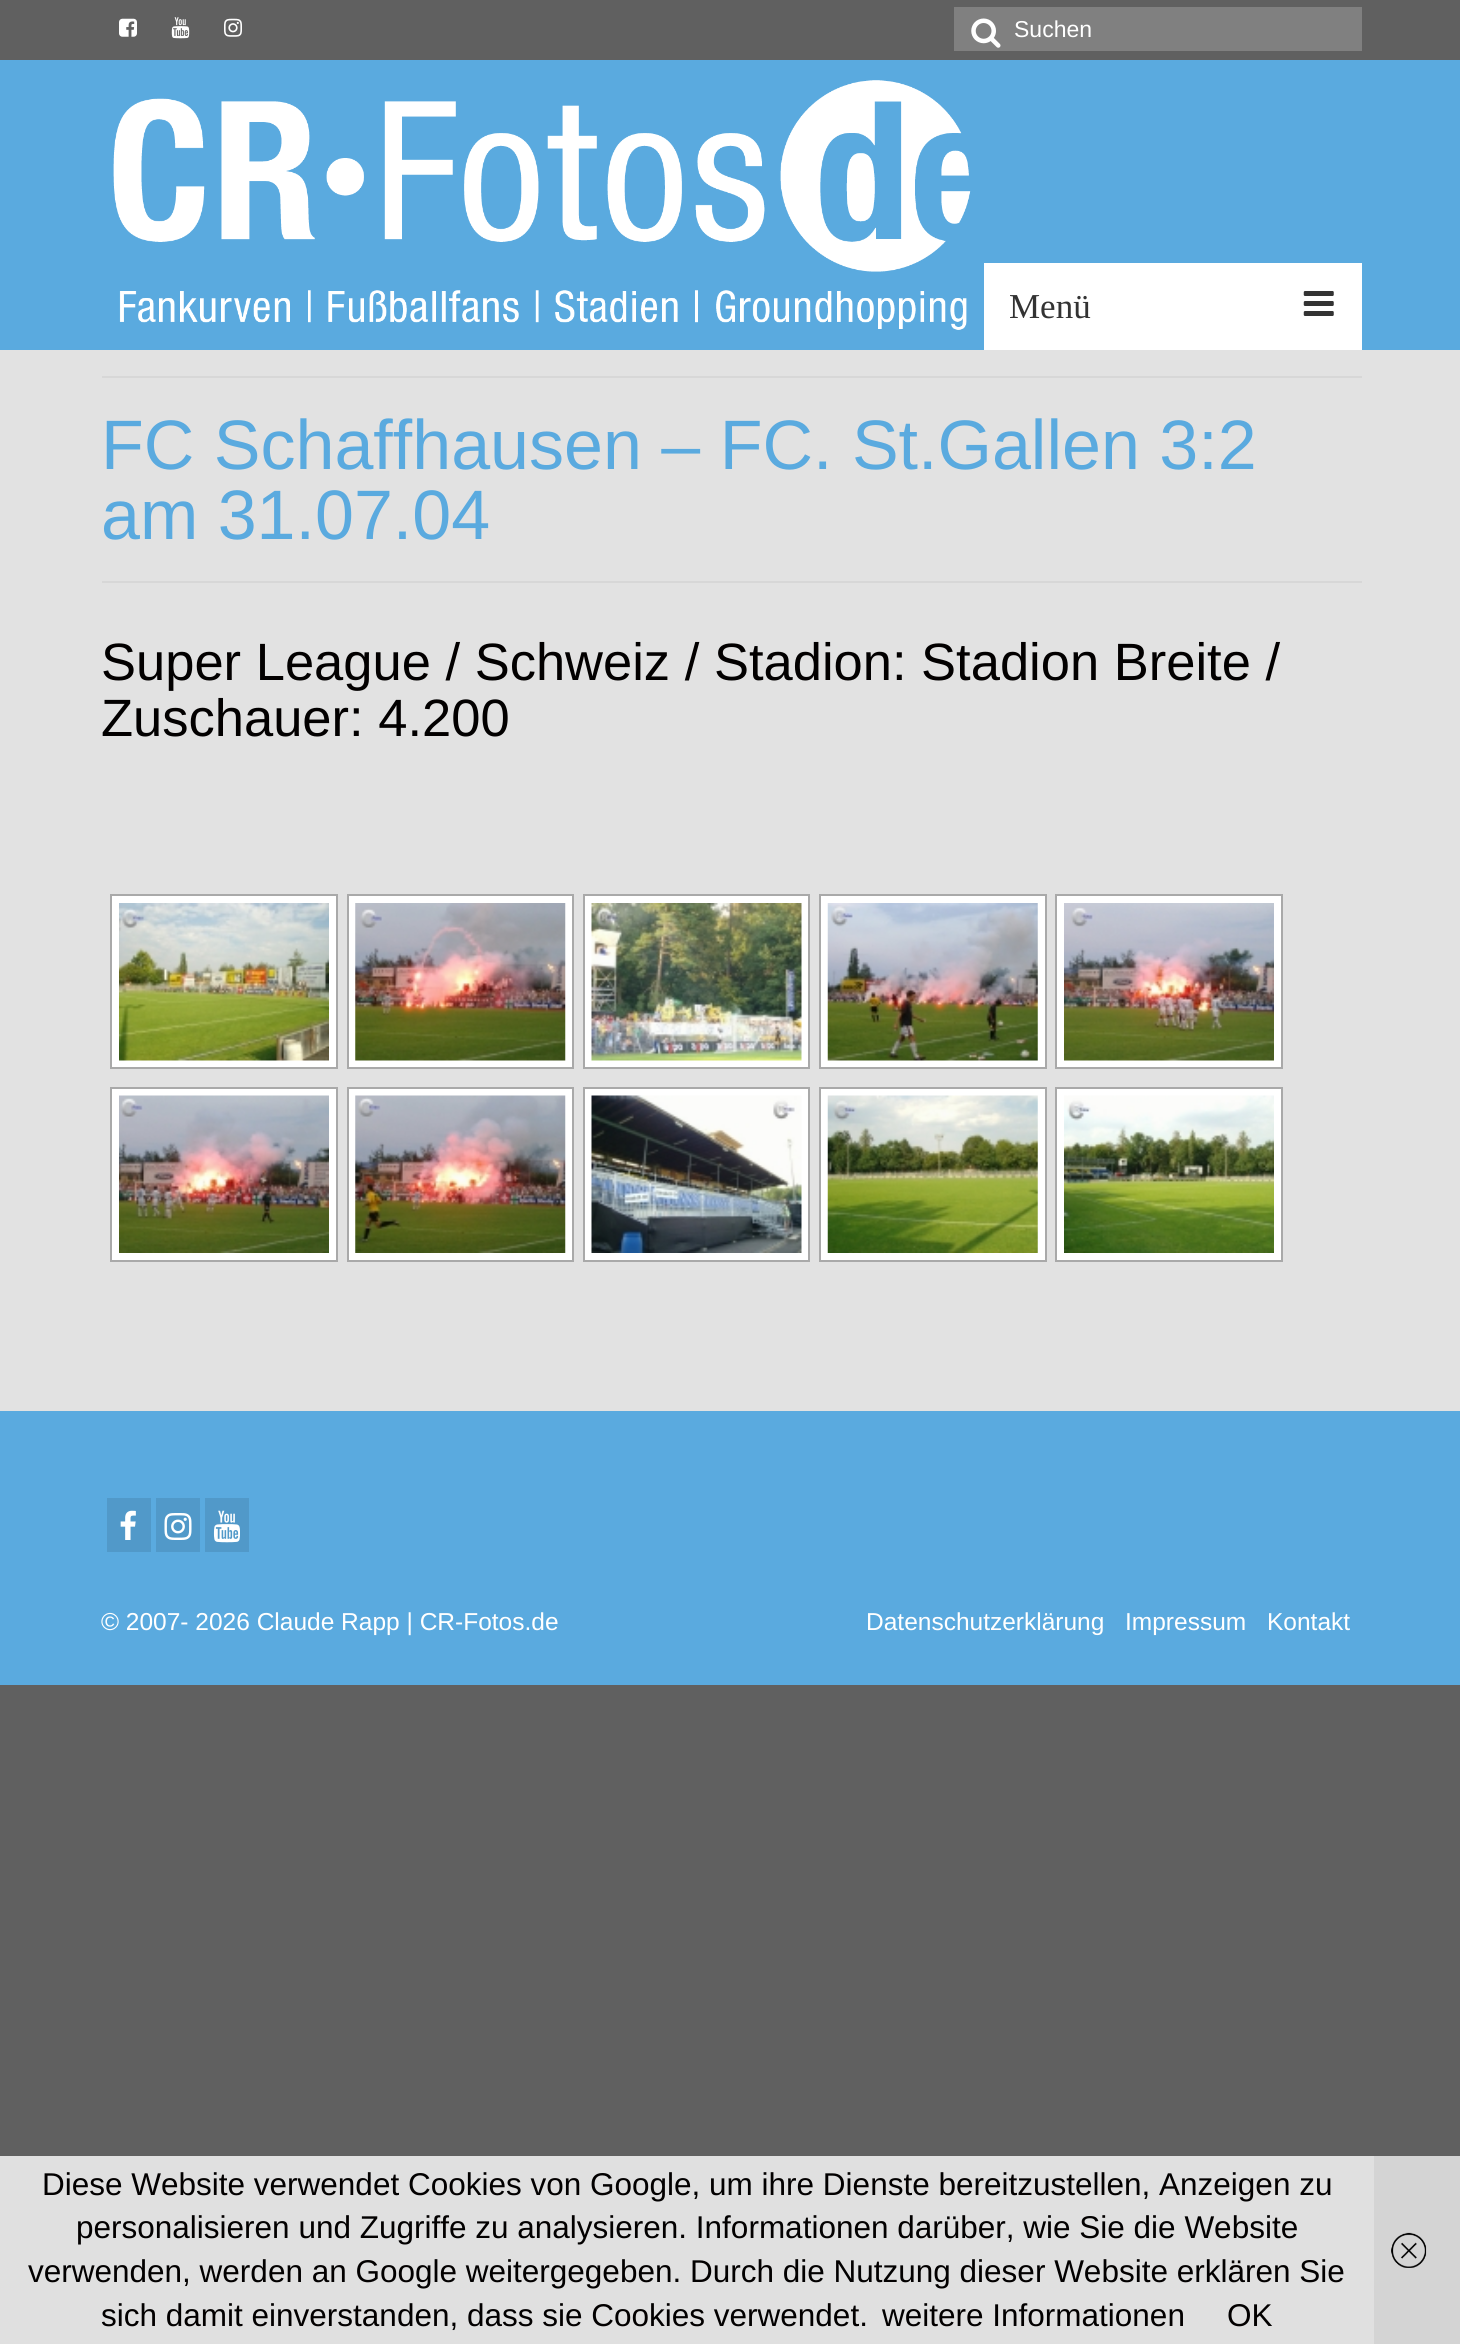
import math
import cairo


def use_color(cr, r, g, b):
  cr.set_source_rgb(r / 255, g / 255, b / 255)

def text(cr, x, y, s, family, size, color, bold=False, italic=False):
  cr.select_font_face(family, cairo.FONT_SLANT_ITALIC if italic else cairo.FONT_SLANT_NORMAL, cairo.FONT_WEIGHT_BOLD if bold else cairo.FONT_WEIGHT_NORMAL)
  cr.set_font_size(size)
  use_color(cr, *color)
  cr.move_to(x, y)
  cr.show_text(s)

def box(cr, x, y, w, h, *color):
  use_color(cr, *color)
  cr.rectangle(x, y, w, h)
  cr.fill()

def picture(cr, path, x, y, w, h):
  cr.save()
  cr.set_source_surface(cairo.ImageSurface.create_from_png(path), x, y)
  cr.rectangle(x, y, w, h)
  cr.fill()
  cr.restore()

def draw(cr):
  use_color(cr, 96, 96, 96)
  cr.paint()
  box(cr, 0, 60, 1460, 290, 90, 170, 223)
  picture(cr, "img_01.png", 119, 18, 18, 19)
  picture(cr, "img_02.png", 171, 17, 19, 22)
  picture(cr, "img_03.png", 224, 18, 18, 19)
  box(cr, 954, 7, 408, 44, 128, 128, 128)
  picture(cr, "img_04.png", 971, 18, 30, 30)
  picture(cr, "img_05.png", 113, 80, 858, 250)
  box(cr, 984, 263, 378, 87, 255, 255, 255)
  picture(cr, "img_06.png", 1303, 291, 31, 25)
  box(cr, 0, 350, 1460, 1061, 226, 226, 226)
  box(cr, 102, 376, 1260, 2, 215, 215, 215)
  box(cr, 102, 581, 1260, 2, 215, 215, 215)
  use_color(cr, 255, 255, 255)
  cr.rectangle(111, 895, 226, 173)
  cr.fill_preserve()
  use_color(cr, 169, 169, 169)
  cr.stroke()
  picture(cr, "img_07.png", 119, 903, 210, 158)
  use_color(cr, 255, 255, 255)
  cr.rectangle(348, 895, 225, 173)
  cr.fill_preserve()
  use_color(cr, 169, 169, 169)
  cr.stroke()
  picture(cr, "img_08.png", 355, 903, 211, 158)
  use_color(cr, 255, 255, 255)
  cr.rectangle(584, 895, 225, 173)
  cr.fill_preserve()
  use_color(cr, 169, 169, 169)
  cr.stroke()
  picture(cr, "img_09.png", 591, 903, 211, 158)
  use_color(cr, 255, 255, 255)
  cr.rectangle(820, 895, 226, 173)
  cr.fill_preserve()
  use_color(cr, 169, 169, 169)
  cr.stroke()
  picture(cr, "img_10.png", 827, 903, 211, 158)
  use_color(cr, 255, 255, 255)
  cr.rectangle(1056, 895, 226, 173)
  cr.fill_preserve()
  use_color(cr, 169, 169, 169)
  cr.stroke()
  picture(cr, "img_11.png", 1064, 903, 210, 158)
  use_color(cr, 255, 255, 255)
  cr.rectangle(111, 1088, 226, 173)
  cr.fill_preserve()
  use_color(cr, 169, 169, 169)
  cr.stroke()
  picture(cr, "img_12.png", 119, 1095, 210, 158)
  use_color(cr, 255, 255, 255)
  cr.rectangle(348, 1088, 225, 173)
  cr.fill_preserve()
  use_color(cr, 169, 169, 169)
  cr.stroke()
  picture(cr, "img_13.png", 355, 1095, 211, 158)
  use_color(cr, 255, 255, 255)
  cr.rectangle(584, 1088, 225, 173)
  cr.fill_preserve()
  use_color(cr, 169, 169, 169)
  cr.stroke()
  picture(cr, "img_14.png", 591, 1095, 211, 158)
  use_color(cr, 255, 255, 255)
  cr.rectangle(820, 1088, 226, 173)
  cr.fill_preserve()
  use_color(cr, 169, 169, 169)
  cr.stroke()
  picture(cr, "img_15.png", 827, 1095, 211, 158)
  use_color(cr, 255, 255, 255)
  cr.rectangle(1056, 1088, 226, 173)
  cr.fill_preserve()
  use_color(cr, 169, 169, 169)
  cr.stroke()
  picture(cr, "img_16.png", 1064, 1095, 210, 158)
  box(cr, 0, 1411, 1460, 274, 90, 170, 223)
  box(cr, 107, 1498, 44, 54, 81, 153, 201)
  picture(cr, "img_17.png", 120, 1510, 16, 30)
  box(cr, 156, 1498, 44, 54, 81, 153, 201)
  picture(cr, "img_18.png", 164, 1513, 28, 27)
  box(cr, 205, 1498, 44, 54, 81, 153, 201)
  picture(cr, "img_19.png", 213, 1510, 27, 33)
  box(cr, 0, 2156, 1374, 188, 224, 224, 224)
  box(cr, 1374, 2156, 86, 188, 212, 212, 212)
  picture(cr, "img_20.png", 1391, 2232, 36, 36)
  text(cr, 1014, 37, "Suchen", "Liberation Sans", 23, (255, 255, 255))
  text(cr, 1009, 318, "Menü", "Liberation Serif", 35, (51, 51, 51))
  text(cr, 101, 469, "FC Schaffhausen – FC. St.Gallen 3:2", "Liberation Sans", 70, (90, 170, 223))
  text(cr, 101, 539, "am 31.07.04", "Liberation Sans", 70, (90, 170, 223))
  text(cr, 101, 680, "Super League / Schweiz / Stadion: Stadion Breite /", "Liberation Sans", 52.5, (2, 0, 0))
  text(cr, 101, 736, "Zuschauer: 4.200", "Liberation Sans", 52.5, (2, 0, 0))
  text(cr, 101, 1630, "© 2007- 2026 Claude Rapp | CR-Fotos.de", "Liberation Sans", 24.5, (255, 255, 255))
  text(cr, 866, 1630, "Datenschutzerklärung", "Liberation Sans", 24.5, (255, 255, 255))
  text(cr, 1125, 1630, "Impressum", "Liberation Sans", 24.5, (255, 255, 255))
  text(cr, 1267, 1630, "Kontakt", "Liberation Sans", 24.5, (255, 255, 255))
  text(cr, 42, 2195, "Diese Website verwendet Cookies von Google, um ihre Dienste bereitzustellen, Anzeigen zu", "Liberation Sans", 31.5, (2, 0, 0))
  text(cr, 76, 2238, "personalisieren und Zugriffe zu analysieren. Informationen darüber, wie Sie die Website", "Liberation Sans", 31.5, (2, 0, 0))
  text(cr, 28, 2282, "verwenden, werden an Google weitergegeben. Durch die Nutzung dieser Website erklären Sie", "Liberation Sans", 31.5, (2, 0, 0))
  text(cr, 101, 2326, "sich damit einverstanden, dass sie Cookies verwendet.", "Liberation Sans", 31.5, (2, 0, 0))
  text(cr, 882, 2326, "weitere Informationen", "Liberation Sans", 31.5, (2, 0, 0))
  text(cr, 1227, 2326, "OK", "Liberation Sans", 31.5, (2, 0, 0))


surface = cairo.ImageSurface(cairo.FORMAT_RGB24, 1460, 2344)
cr = cairo.Context(surface)
options = cairo.FontOptions()
options.set_hint_metrics(cairo.HINT_METRICS_OFF)
options.set_hint_style(cairo.HINT_STYLE_NONE)
cr.set_font_options(options)
cr.set_miter_limit(4)
draw(cr)
surface.write_to_png("out.png")
